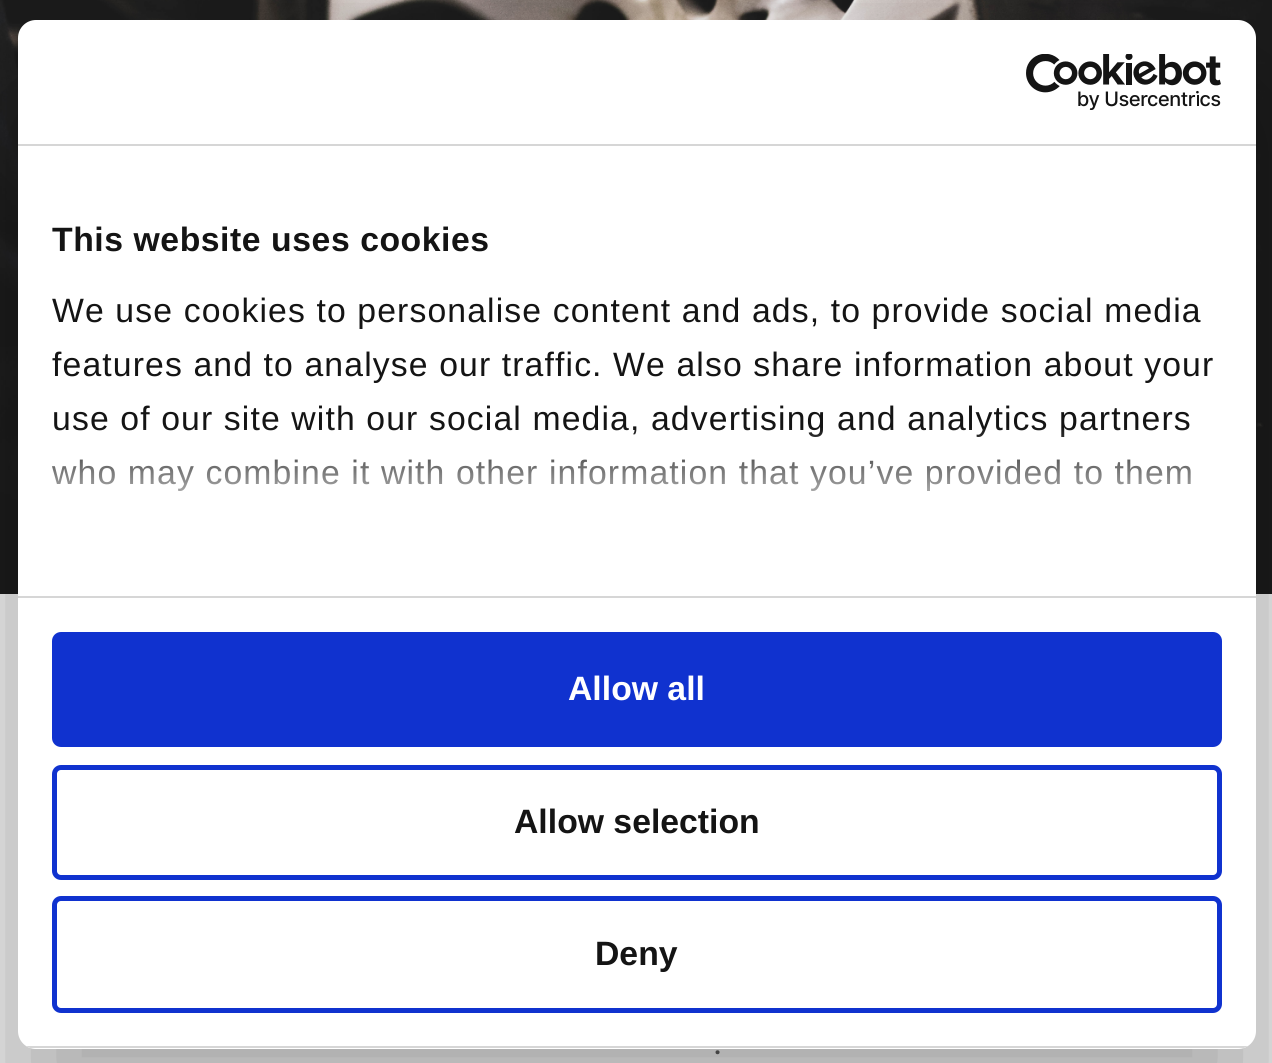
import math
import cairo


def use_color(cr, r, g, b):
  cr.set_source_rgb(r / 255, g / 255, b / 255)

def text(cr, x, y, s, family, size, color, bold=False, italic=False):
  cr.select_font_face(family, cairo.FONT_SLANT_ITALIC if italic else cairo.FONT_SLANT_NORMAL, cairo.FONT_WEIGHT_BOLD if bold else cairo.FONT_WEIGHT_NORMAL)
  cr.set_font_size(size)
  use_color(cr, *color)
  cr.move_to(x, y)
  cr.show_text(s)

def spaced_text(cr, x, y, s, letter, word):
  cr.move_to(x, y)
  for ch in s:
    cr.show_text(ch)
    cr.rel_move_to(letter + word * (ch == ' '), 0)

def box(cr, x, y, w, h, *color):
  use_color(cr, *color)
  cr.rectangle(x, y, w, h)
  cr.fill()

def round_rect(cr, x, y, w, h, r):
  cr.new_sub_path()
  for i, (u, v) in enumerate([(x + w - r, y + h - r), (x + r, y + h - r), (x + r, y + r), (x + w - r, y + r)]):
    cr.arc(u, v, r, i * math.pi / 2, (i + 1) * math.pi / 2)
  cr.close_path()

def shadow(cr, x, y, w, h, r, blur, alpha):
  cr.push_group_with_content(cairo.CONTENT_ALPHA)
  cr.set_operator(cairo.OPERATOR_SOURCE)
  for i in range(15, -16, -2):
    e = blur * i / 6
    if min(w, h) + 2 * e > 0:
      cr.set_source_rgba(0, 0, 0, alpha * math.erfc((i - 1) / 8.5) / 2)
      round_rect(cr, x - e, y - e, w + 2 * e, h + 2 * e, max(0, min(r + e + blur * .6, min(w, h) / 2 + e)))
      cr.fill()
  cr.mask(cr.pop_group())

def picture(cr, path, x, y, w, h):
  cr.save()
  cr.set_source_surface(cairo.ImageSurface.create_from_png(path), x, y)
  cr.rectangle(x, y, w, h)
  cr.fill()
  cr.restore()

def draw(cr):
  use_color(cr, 255, 255, 255)
  cr.paint()
  picture(cr, "img_02.png", 0, 0, 1272, 594)
  box(cr, 0, 594, 1272, 469, 238, 238, 238)
  use_color(cr, 0, 0, 0)
  shadow(cr, 18, 92, 1238, 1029, 18, 76.5, 0.3)
  use_color(cr, 255, 255, 255)
  round_rect(cr, 18, 20, 1238, 1029, 18)
  cr.fill()
  box(cr, 18, 144, 1238, 2, 214, 214, 214)
  picture(cr, "img_01.png", 1026, 54, 195, 56)
  box(cr, 18, 596, 1238, 2, 214, 214, 214)
  cr.save()
  round_rect(cr, 18, 20, 1238, 1029, 18)
  cr.clip()
  box(cr, 18, 1046, 1238, 2, 214, 214, 214)
  cr.restore()
  use_color(cr, 16, 50, 207)
  round_rect(cr, 54.5, 634.5, 1165, 110, 6.5)
  cr.fill_preserve()
  cr.set_line_width(5)
  cr.stroke()
  round_rect(cr, 54.5, 767.5, 1165, 110, 6.5)
  cr.stroke()
  round_rect(cr, 54.5, 898.5, 1165, 112, 6.5)
  cr.stroke()
  cr.select_font_face("Liberation Sans", cairo.FONT_SLANT_NORMAL, cairo.FONT_WEIGHT_BOLD)
  cr.set_font_size(33.75)
  use_color(cr, 20, 20, 20)
  spaced_text(cr, 52, 251, "This website uses cookies", 0.55, 0)
  cr.select_font_face("Liberation Sans")
  spaced_text(cr, 52, 322, "We use cookies to personalise content and ads, to provide social media", 1.12, 0)
  spaced_text(cr, 52, 376, "features and to analyse our traffic. We also share information about your", 1.12, 0)
  spaced_text(cr, 52, 430, "use of our site with our social media, advertising and analytics partners", 1.12, 0)
  spaced_text(cr, 52, 484, "who may combine it with other information that you’ve provided to them", 1.12, 0)
  gradient = cairo.LinearGradient(622, 595, 622, 426)
  gradient.add_color_stop_rgba(0, 1, 1, 1, 1)
  gradient.add_color_stop_rgba(0.5, 1, 1, 1, 0.8)
  gradient.add_color_stop_rgba(1, 1, 1, 1, 0)
  cr.set_source(gradient)
  cr.rectangle(51, 428, 1140, 63)
  cr.fill()
  text(cr, 568, 700, "Allow all", "Liberation Sans", 33.75, (255, 255, 255), bold=True)
  text(cr, 514, 833, "Allow selection", "Liberation Sans", 33.75, (20, 20, 20), bold=True)
  text(cr, 595, 965, "Deny", "Liberation Sans", 33.75, (20, 20, 20), bold=True)
  text(cr, 713, 1054, ".", "Roboto", 36, (68, 68, 68))


surface = cairo.ImageSurface(cairo.FORMAT_RGB24, 1272, 1063)
cr = cairo.Context(surface)
options = cairo.FontOptions()
options.set_hint_metrics(cairo.HINT_METRICS_OFF)
options.set_hint_style(cairo.HINT_STYLE_NONE)
cr.set_font_options(options)
cr.set_miter_limit(4)
draw(cr)
surface.write_to_png("out.png")
